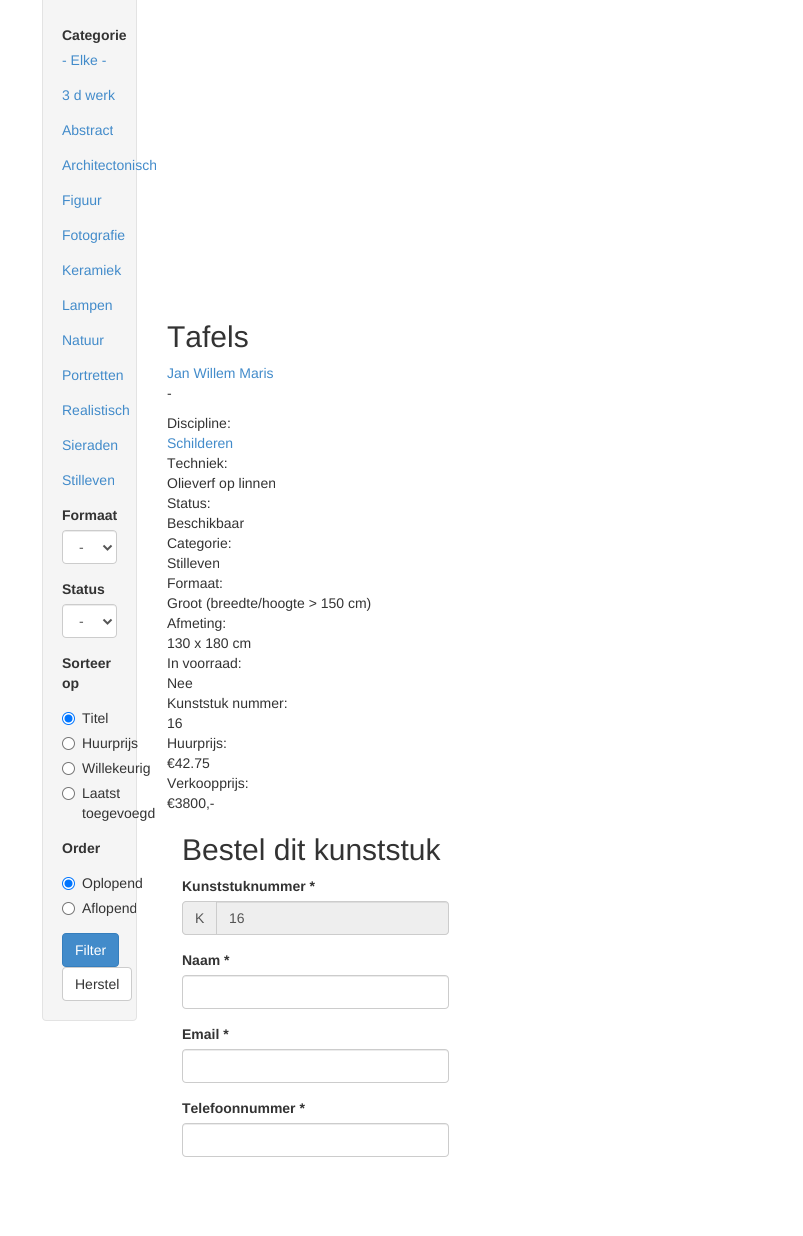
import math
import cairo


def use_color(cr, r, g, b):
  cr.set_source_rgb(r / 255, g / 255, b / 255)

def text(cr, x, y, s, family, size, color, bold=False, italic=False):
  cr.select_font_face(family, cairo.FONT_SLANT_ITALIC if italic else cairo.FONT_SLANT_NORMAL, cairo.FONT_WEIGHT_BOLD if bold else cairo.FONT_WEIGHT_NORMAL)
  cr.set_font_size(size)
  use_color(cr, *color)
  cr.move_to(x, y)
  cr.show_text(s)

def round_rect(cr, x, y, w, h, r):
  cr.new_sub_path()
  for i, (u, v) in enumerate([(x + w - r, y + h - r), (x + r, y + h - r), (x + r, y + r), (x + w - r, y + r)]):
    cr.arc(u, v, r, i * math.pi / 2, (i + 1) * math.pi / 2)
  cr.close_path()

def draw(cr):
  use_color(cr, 255, 255, 255)
  cr.paint()
  use_color(cr, 245, 245, 245)
  round_rect(cr, 42.5, -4.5, 94, 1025, 3.5)
  cr.fill_preserve()
  use_color(cr, 227, 227, 227)
  cr.set_line_width(1)
  cr.stroke()
  use_color(cr, 255, 255, 255)
  round_rect(cr, 62, 530, 55, 34, 4)
  cr.fill()
  use_color(cr, 236, 236, 236)
  cr.new_path()
  cr.move_to(66, 532)
  cr.line_to(113, 532)
  cr.curve_to(115, 532, 116, 533, 116, 535)
  cr.curve_to(116, 529, 110, 531, 105, 531)
  cr.line_to(74, 531)
  cr.curve_to(69, 531, 63, 529, 63, 535)
  cr.curve_to(63, 533, 64, 532, 66, 532)
  cr.close_path()
  cr.fill()
  round_rect(cr, 62.5, 530.5, 54, 33, 3.5)
  use_color(cr, 204, 204, 204)
  cr.stroke()
  cr.new_path()
  cr.move_to(103.5, 545.5)
  cr.line_to(107.5, 549.5)
  cr.line_to(111.5, 545.5)
  use_color(cr, 85, 85, 85)
  cr.set_line_width(2)
  cr.stroke()
  use_color(cr, 255, 255, 255)
  round_rect(cr, 62, 604, 55, 34, 4)
  cr.fill()
  use_color(cr, 236, 236, 236)
  cr.new_path()
  cr.move_to(66, 606)
  cr.line_to(113, 606)
  cr.curve_to(115, 606, 116, 607, 116, 609)
  cr.curve_to(116, 603, 110, 605, 105, 605)
  cr.line_to(74, 605)
  cr.curve_to(69, 605, 63, 603, 63, 609)
  cr.curve_to(63, 607, 64, 606, 66, 606)
  cr.close_path()
  cr.fill()
  round_rect(cr, 62.5, 604.5, 54, 33, 3.5)
  use_color(cr, 204, 204, 204)
  cr.set_line_width(1)
  cr.stroke()
  cr.new_path()
  cr.move_to(103.5, 619.5)
  cr.line_to(107.5, 623.5)
  cr.line_to(111.5, 619.5)
  use_color(cr, 85, 85, 85)
  cr.set_line_width(2)
  cr.stroke()
  use_color(cr, 255, 255, 255)
  cr.arc(68.5, 718.5, 6, 0, 2 * math.pi)
  cr.fill_preserve()
  use_color(cr, 0, 117, 255)
  cr.set_line_width(1)
  cr.stroke()
  cr.arc(68.5, 718.5, 4, 0, 2 * math.pi)
  cr.fill()
  use_color(cr, 255, 255, 255)
  cr.arc(68.5, 743.5, 6, 0, 2 * math.pi)
  cr.fill_preserve()
  use_color(cr, 118, 118, 118)
  cr.stroke()
  use_color(cr, 255, 255, 255)
  cr.arc(68.5, 768.5, 6, 0, 2 * math.pi)
  cr.fill_preserve()
  use_color(cr, 118, 118, 118)
  cr.stroke()
  use_color(cr, 255, 255, 255)
  cr.arc(68.5, 793.5, 6, 0, 2 * math.pi)
  cr.fill_preserve()
  use_color(cr, 118, 118, 118)
  cr.stroke()
  use_color(cr, 255, 255, 255)
  cr.arc(68.5, 883.5, 6, 0, 2 * math.pi)
  cr.fill_preserve()
  use_color(cr, 0, 117, 255)
  cr.stroke()
  cr.arc(68.5, 883.5, 4, 0, 2 * math.pi)
  cr.fill()
  use_color(cr, 255, 255, 255)
  cr.arc(68.5, 908.5, 6, 0, 2 * math.pi)
  cr.fill_preserve()
  use_color(cr, 118, 118, 118)
  cr.stroke()
  use_color(cr, 66, 139, 202)
  round_rect(cr, 62.5, 933.5, 56, 33, 3.5)
  cr.fill_preserve()
  use_color(cr, 53, 126, 189)
  cr.stroke()
  use_color(cr, 255, 255, 255)
  round_rect(cr, 62.5, 967.5, 69, 33, 3.5)
  cr.fill_preserve()
  use_color(cr, 204, 204, 204)
  cr.stroke()
  use_color(cr, 238, 238, 238)
  cr.new_path()
  cr.move_to(186, 901)
  cr.line_to(216, 901)
  cr.line_to(216, 935)
  cr.line_to(186, 935)
  cr.curve_to(184, 935, 182, 933, 182, 931)
  cr.line_to(182, 905)
  cr.curve_to(182, 903, 184, 901, 186, 901)
  cr.close_path()
  cr.fill()
  use_color(cr, 204, 204, 204)
  cr.set_fill_rule(cairo.FILL_RULE_EVEN_ODD)
  cr.new_path()
  cr.move_to(186, 901)
  cr.line_to(216, 901)
  cr.line_to(216, 935)
  cr.line_to(186, 935)
  cr.curve_to(184, 935, 182, 933, 182, 931)
  cr.line_to(182, 905)
  cr.curve_to(182, 903, 184, 901, 186, 901)
  cr.close_path()
  cr.move_to(186, 902)
  cr.line_to(216, 902)
  cr.line_to(216, 934)
  cr.line_to(186, 934)
  cr.curve_to(184.5, 934, 183, 932.5, 183, 931)
  cr.line_to(183, 905)
  cr.curve_to(183, 903.5, 184.5, 902, 186, 902)
  cr.close_path()
  cr.fill()
  use_color(cr, 238, 238, 238)
  cr.new_path()
  cr.move_to(216, 901)
  cr.line_to(445, 901)
  cr.curve_to(447, 901, 449, 903, 449, 905)
  cr.line_to(449, 931)
  cr.curve_to(449, 933, 447, 935, 445, 935)
  cr.line_to(216, 935)
  cr.close_path()
  cr.fill()
  use_color(cr, 220, 220, 220)
  cr.set_fill_rule(cairo.FILL_RULE_WINDING)
  cr.new_path()
  cr.move_to(217, 903)
  cr.line_to(445, 903)
  cr.curve_to(447, 903, 448, 904, 448, 906)
  cr.curve_to(448, 904, 447, 902, 445, 902)
  cr.line_to(217, 902)
  cr.close_path()
  cr.fill()
  cr.new_path()
  cr.move_to(216.5, 901.5)
  cr.line_to(445, 901.5)
  cr.curve_to(447, 901.5, 448.5, 903, 448.5, 905)
  cr.line_to(448.5, 931)
  cr.curve_to(448.5, 933, 447, 934.5, 445, 934.5)
  cr.line_to(216.5, 934.5)
  cr.close_path()
  use_color(cr, 204, 204, 204)
  cr.stroke()
  use_color(cr, 236, 236, 236)
  cr.new_path()
  cr.move_to(186, 977)
  cr.line_to(445, 977)
  cr.curve_to(447, 977, 448, 978, 448, 980)
  cr.line_to(448, 979)
  cr.curve_to(448, 977, 447, 976, 445, 976)
  cr.line_to(186, 976)
  cr.curve_to(184, 976, 183, 977, 183, 979)
  cr.line_to(183, 980)
  cr.curve_to(183, 978, 184, 977, 186, 977)
  cr.close_path()
  cr.fill()
  round_rect(cr, 182.5, 975.5, 266, 33, 3.5)
  use_color(cr, 204, 204, 204)
  cr.stroke()
  use_color(cr, 236, 236, 236)
  cr.new_path()
  cr.move_to(186, 1051)
  cr.line_to(445, 1051)
  cr.curve_to(447, 1051, 448, 1052, 448, 1054)
  cr.line_to(448, 1053)
  cr.curve_to(448, 1051, 447, 1050, 445, 1050)
  cr.line_to(186, 1050)
  cr.curve_to(184, 1050, 183, 1051, 183, 1053)
  cr.line_to(183, 1054)
  cr.curve_to(183, 1052, 184, 1051, 186, 1051)
  cr.close_path()
  cr.fill()
  round_rect(cr, 182.5, 1049.5, 266, 33, 3.5)
  use_color(cr, 204, 204, 204)
  cr.stroke()
  use_color(cr, 236, 236, 236)
  cr.new_path()
  cr.move_to(186, 1125)
  cr.line_to(445, 1125)
  cr.curve_to(447, 1125, 448, 1126, 448, 1128)
  cr.line_to(448, 1127)
  cr.curve_to(448, 1125, 447, 1124, 445, 1124)
  cr.line_to(186, 1124)
  cr.curve_to(184, 1124, 183, 1125, 183, 1127)
  cr.line_to(183, 1128)
  cr.curve_to(183, 1126, 184, 1125, 186, 1125)
  cr.close_path()
  cr.fill()
  round_rect(cr, 182.5, 1123.5, 266, 33, 3.5)
  use_color(cr, 204, 204, 204)
  cr.stroke()
  text(cr, 62, 40, "Categorie", "Liberation Sans", 14, (51, 51, 51), bold=True)
  text(cr, 62, 65, "- Elke -", "Liberation Sans", 14, (66, 139, 202))
  text(cr, 62, 100, "3 d werk", "Liberation Sans", 14, (66, 139, 202))
  text(cr, 62, 135, "Abstract", "Liberation Sans", 14, (66, 139, 202))
  text(cr, 62, 170, "Architectonisch", "Liberation Sans", 14, (66, 139, 202))
  text(cr, 62, 205, "Figuur", "Liberation Sans", 14, (66, 139, 202))
  text(cr, 62, 240, "Fotografie", "Liberation Sans", 14, (66, 139, 202))
  text(cr, 62, 275, "Keramiek", "Liberation Sans", 14, (66, 139, 202))
  text(cr, 62, 310, "Lampen", "Liberation Sans", 14, (66, 139, 202))
  text(cr, 62, 345, "Natuur", "Liberation Sans", 14, (66, 139, 202))
  text(cr, 62, 380, "Portretten", "Liberation Sans", 14, (66, 139, 202))
  text(cr, 62, 415, "Realistisch", "Liberation Sans", 14, (66, 139, 202))
  text(cr, 62, 450, "Sieraden", "Liberation Sans", 14, (66, 139, 202))
  text(cr, 62, 485, "Stilleven", "Liberation Sans", 14, (66, 139, 202))
  text(cr, 62, 520, "Formaat", "Liberation Sans", 14, (51, 51, 51), bold=True)
  text(cr, 79, 552, "-", "Liberation Sans", 14, (85, 85, 85))
  text(cr, 62, 594, "Status", "Liberation Sans", 14, (51, 51, 51), bold=True)
  text(cr, 79, 626, "-", "Liberation Sans", 14, (85, 85, 85))
  text(cr, 62, 668, "Sorteer", "Liberation Sans", 14, (51, 51, 51), bold=True)
  text(cr, 62, 688, "op", "Liberation Sans", 14, (51, 51, 51), bold=True)
  text(cr, 82, 723, "Titel", "Liberation Sans", 14, (51, 51, 51))
  text(cr, 82, 748, "Huurprijs", "Liberation Sans", 14, (51, 51, 51))
  text(cr, 82, 773, "Willekeurig", "Liberation Sans", 14, (51, 51, 51))
  text(cr, 82, 798, "Laatst", "Liberation Sans", 14, (51, 51, 51))
  text(cr, 82, 818, "toegevoegd", "Liberation Sans", 14, (51, 51, 51))
  text(cr, 62, 853, "Order", "Liberation Sans", 14, (51, 51, 51), bold=True)
  text(cr, 82, 888, "Oplopend", "Liberation Sans", 14, (51, 51, 51))
  text(cr, 82, 913, "Aflopend", "Liberation Sans", 14, (51, 51, 51))
  text(cr, 75, 955, "Filter", "Liberation Sans", 14, (255, 255, 255))
  text(cr, 75, 989, "Herstel", "Liberation Sans", 14, (51, 51, 51))
  text(cr, 167, 347, "Tafels", "Liberation Sans", 30, (51, 51, 51))
  text(cr, 167, 378, "Jan Willem Maris", "Liberation Sans", 14, (66, 139, 202))
  text(cr, 167, 398, "-", "Liberation Sans", 14, (51, 51, 51))
  text(cr, 167, 428, "Discipline:", "Liberation Sans", 14, (51, 51, 51))
  text(cr, 167, 448, "Schilderen", "Liberation Sans", 14, (66, 139, 202))
  text(cr, 167, 468, "Techniek:", "Liberation Sans", 14, (51, 51, 51))
  text(cr, 167, 488, "Olieverf op linnen", "Liberation Sans", 14, (51, 51, 51))
  text(cr, 167, 508, "Status:", "Liberation Sans", 14, (51, 51, 51))
  text(cr, 167, 528, "Beschikbaar", "Liberation Sans", 14, (51, 51, 51))
  text(cr, 167, 548, "Categorie:", "Liberation Sans", 14, (51, 51, 51))
  text(cr, 167, 568, "Stilleven", "Liberation Sans", 14, (51, 51, 51))
  text(cr, 167, 588, "Formaat:", "Liberation Sans", 14, (51, 51, 51))
  text(cr, 167, 608, "Groot (breedte/hoogte > 150 cm)", "Liberation Sans", 14, (51, 51, 51))
  text(cr, 167, 628, "Afmeting:", "Liberation Sans", 14, (51, 51, 51))
  text(cr, 167, 648, "130 x 180 cm", "Liberation Sans", 14, (51, 51, 51))
  text(cr, 167, 668, "In voorraad:", "Liberation Sans", 14, (51, 51, 51))
  text(cr, 167, 688, "Nee", "Liberation Sans", 14, (51, 51, 51))
  text(cr, 167, 708, "Kunststuk nummer:", "Liberation Sans", 14, (51, 51, 51))
  text(cr, 167, 728, "16", "Liberation Sans", 14, (51, 51, 51))
  text(cr, 167, 748, "Huurprijs:", "Liberation Sans", 14, (51, 51, 51))
  text(cr, 167, 768, "€42.75", "Liberation Sans", 14, (51, 51, 51))
  text(cr, 167, 788, "Verkoopprijs:", "Liberation Sans", 14, (51, 51, 51))
  text(cr, 167, 808, "€3800,-", "Liberation Sans", 14, (51, 51, 51))
  text(cr, 182, 860, "Bestel dit kunststuk", "Liberation Sans", 30, (51, 51, 51))
  text(cr, 182, 891, "Kunststuknummer *", "Liberation Sans", 14, (51, 51, 51), bold=True)
  text(cr, 195, 923, "K", "Liberation Sans", 14, (85, 85, 85))
  text(cr, 229, 923, "16", "Liberation Sans", 14, (85, 85, 85))
  text(cr, 182, 965, "Naam *", "Liberation Sans", 14, (51, 51, 51), bold=True)
  text(cr, 182, 1039, "Email *", "Liberation Sans", 14, (51, 51, 51), bold=True)
  text(cr, 182, 1113, "Telefoonnummer *", "Liberation Sans", 14, (51, 51, 51), bold=True)


surface = cairo.ImageSurface(cairo.FORMAT_RGB24, 803, 1236)
cr = cairo.Context(surface)
options = cairo.FontOptions()
options.set_hint_metrics(cairo.HINT_METRICS_OFF)
options.set_hint_style(cairo.HINT_STYLE_NONE)
cr.set_font_options(options)
cr.set_miter_limit(4)
draw(cr)
surface.write_to_png("out.png")
